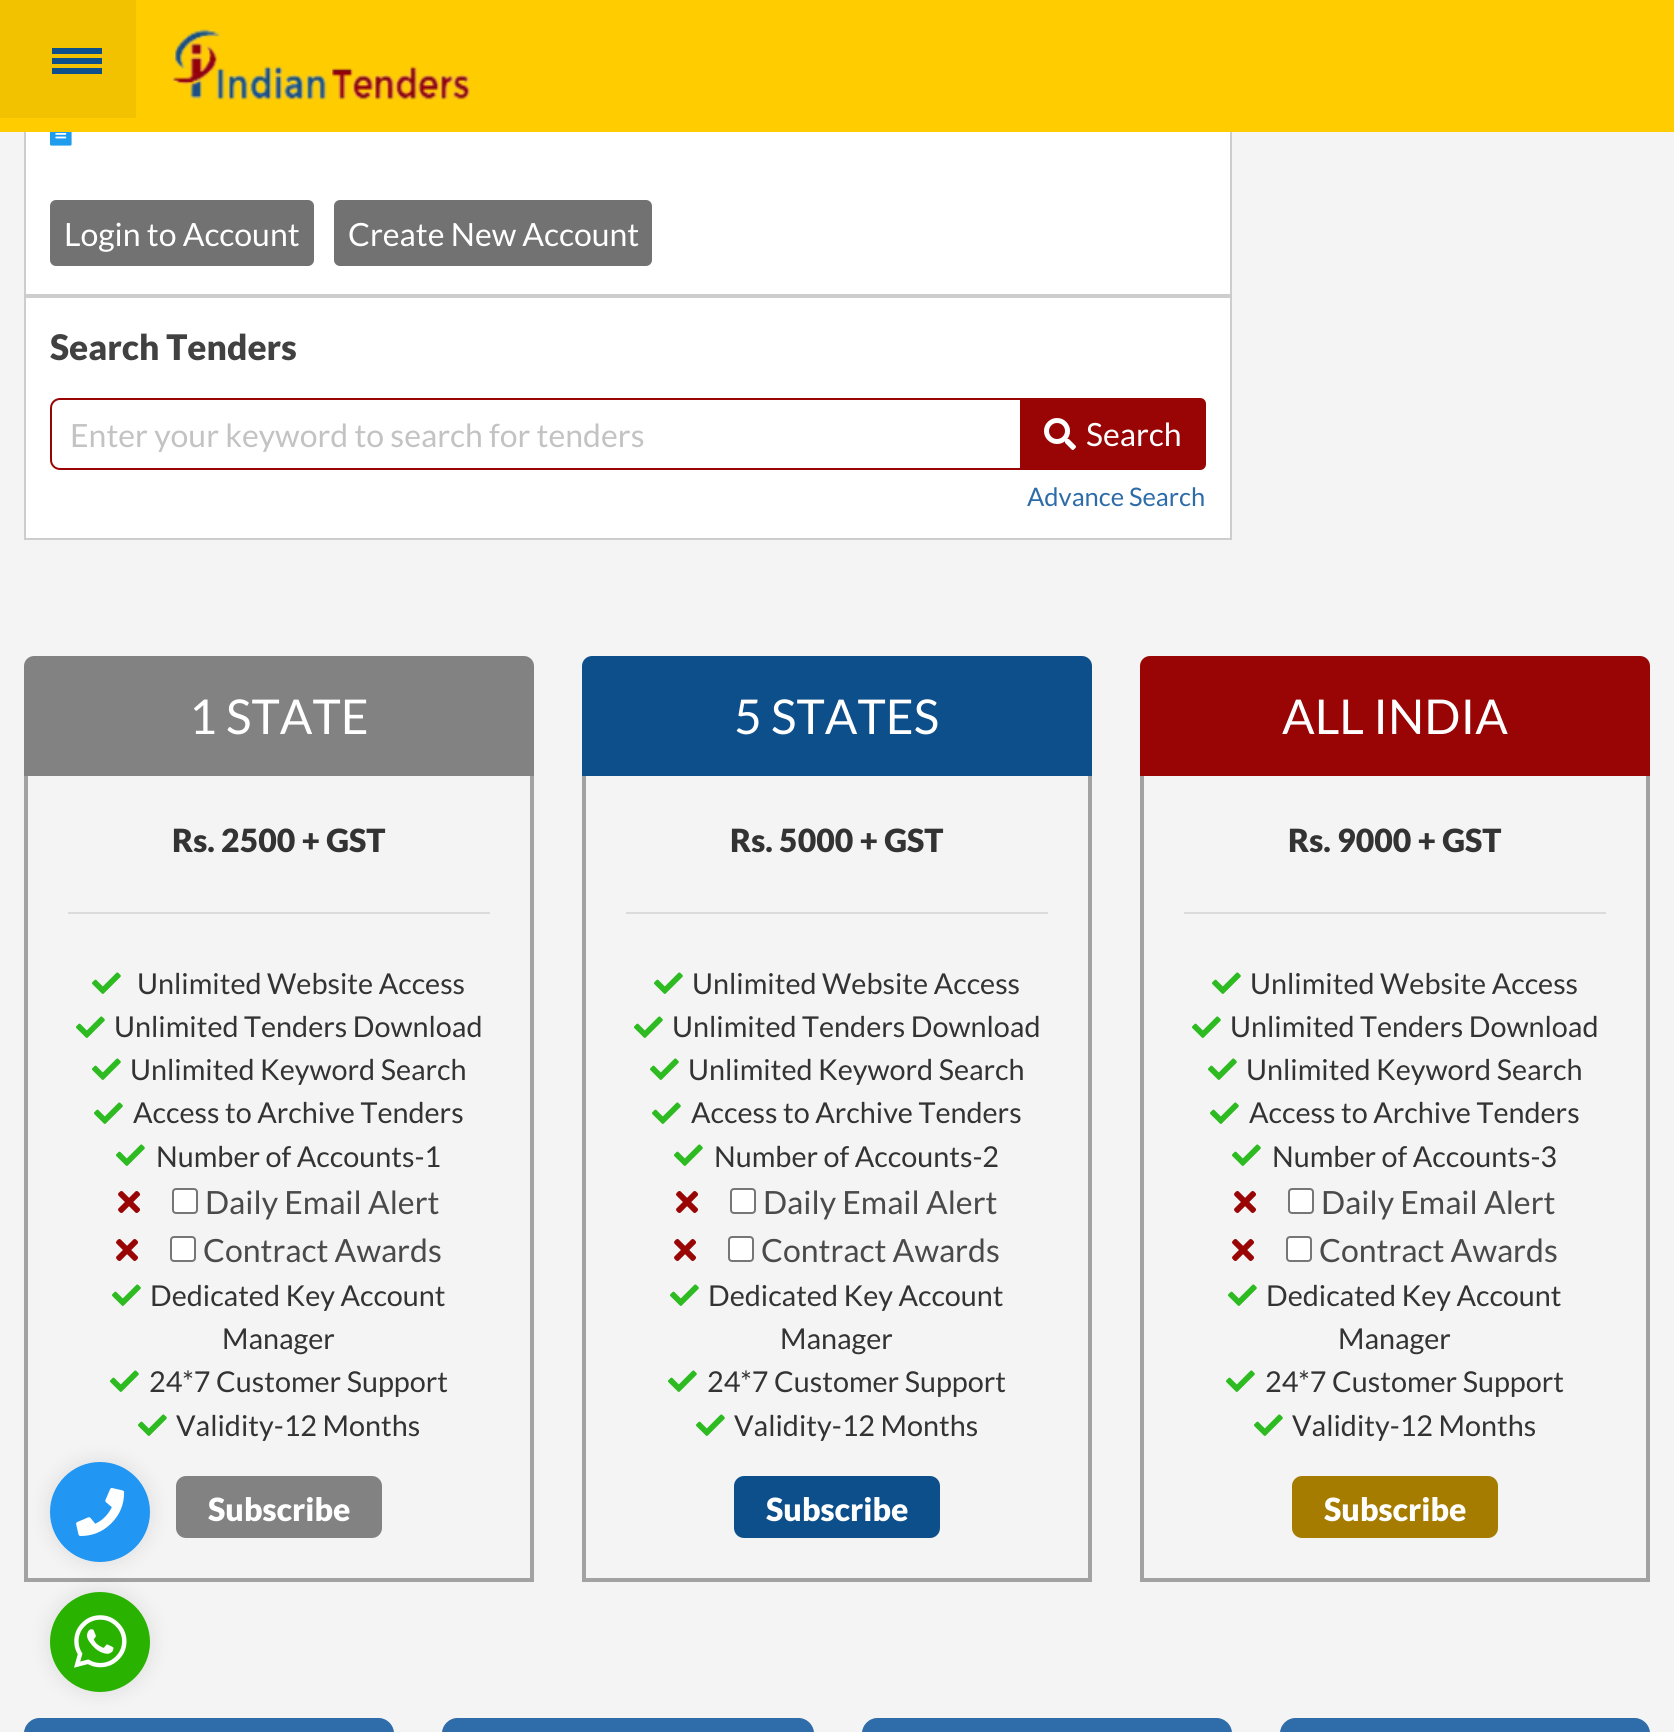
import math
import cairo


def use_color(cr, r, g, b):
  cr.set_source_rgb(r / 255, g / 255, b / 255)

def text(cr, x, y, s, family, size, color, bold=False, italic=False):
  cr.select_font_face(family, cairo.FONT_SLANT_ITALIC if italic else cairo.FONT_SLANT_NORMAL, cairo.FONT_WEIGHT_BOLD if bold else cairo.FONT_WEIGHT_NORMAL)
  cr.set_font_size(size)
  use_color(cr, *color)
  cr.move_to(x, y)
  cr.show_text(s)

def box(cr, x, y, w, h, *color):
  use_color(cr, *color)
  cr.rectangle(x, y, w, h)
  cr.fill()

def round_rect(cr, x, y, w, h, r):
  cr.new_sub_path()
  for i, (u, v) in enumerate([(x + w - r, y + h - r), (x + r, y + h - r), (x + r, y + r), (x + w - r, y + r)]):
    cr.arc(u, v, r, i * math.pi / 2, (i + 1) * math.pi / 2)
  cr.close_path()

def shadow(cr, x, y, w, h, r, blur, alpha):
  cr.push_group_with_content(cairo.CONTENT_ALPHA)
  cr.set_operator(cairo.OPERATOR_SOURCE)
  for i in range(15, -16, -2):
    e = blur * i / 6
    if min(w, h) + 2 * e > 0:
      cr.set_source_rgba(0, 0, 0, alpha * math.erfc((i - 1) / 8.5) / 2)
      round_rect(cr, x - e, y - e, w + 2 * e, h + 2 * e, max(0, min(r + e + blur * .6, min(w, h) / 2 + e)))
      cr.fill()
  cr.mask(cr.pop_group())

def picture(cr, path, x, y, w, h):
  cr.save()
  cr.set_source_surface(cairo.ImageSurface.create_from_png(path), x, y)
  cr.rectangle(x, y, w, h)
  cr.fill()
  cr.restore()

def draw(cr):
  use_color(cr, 244, 244, 244)
  cr.paint()
  box(cr, 26, 132, 1204, 162, 255, 255, 255)
  cr.rectangle(25, -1, 1206, 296)
  use_color(cr, 205, 205, 205)
  cr.stroke()
  box(cr, 0, 0, 1674, 132, 255, 204, 0)
  box(cr, 0, 0, 136, 118, 242, 194, 0)
  box(cr, 52, 48, 50, 6, 13, 79, 139)
  box(cr, 52, 58, 50, 6, 13, 79, 139)
  box(cr, 52, 68, 50, 6, 13, 79, 139)
  picture(cr, "img_01.png", 171, 29, 300, 71)
  picture(cr, "img_02.png", 50, 132, 22, 14)
  use_color(cr, 114, 114, 114)
  round_rect(cr, 50, 200, 264, 66, 6)
  cr.fill()
  round_rect(cr, 334, 200, 318, 66, 6)
  cr.fill()
  use_color(cr, 255, 255, 255)
  cr.rectangle(25, 297, 1206, 242)
  cr.fill_preserve()
  use_color(cr, 205, 205, 205)
  cr.stroke()
  cr.new_path()
  cr.move_to(60, 399)
  cr.line_to(1021, 399)
  cr.line_to(1021, 469)
  cr.line_to(60, 469)
  cr.curve_to(55, 469, 51, 465, 51, 460)
  cr.line_to(51, 408)
  cr.curve_to(51, 403, 55, 399, 60, 399)
  cr.close_path()
  use_color(cr, 153, 5, 5)
  cr.stroke()
  cr.new_path()
  cr.move_to(1020, 398)
  cr.line_to(1200, 398)
  cr.curve_to(1203.5, 398, 1206, 400.5, 1206, 404)
  cr.line_to(1206, 464)
  cr.curve_to(1206, 467.5, 1203.5, 470, 1200, 470)
  cr.line_to(1020, 470)
  cr.close_path()
  cr.fill()
  picture(cr, "img_03.png", 1044, 418, 32, 32)
  box(cr, 530, 776, 4, 806, 162, 162, 162)
  box(cr, 24, 1578, 510, 4, 162, 162, 162)
  box(cr, 24, 776, 4, 806, 162, 162, 162)
  picture(cr, "img_05.png", 138, 1414, 29, 22)
  use_color(cr, 130, 130, 130)
  round_rect(cr, 177, 1477, 204, 60, 9)
  cr.fill_preserve()
  cr.stroke()
  use_color(cr, 0, 0, 0)
  shadow(cr, 50, 1462, 100, 100, 50, 10, 0.1)
  use_color(cr, 33, 150, 243)
  cr.arc(100, 1512, 50, 0, 2 * math.pi)
  cr.fill()
  picture(cr, "img_04.png", 76, 1488, 49, 48)
  use_color(cr, 130, 130, 130)
  cr.new_path()
  cr.move_to(34, 656)
  cr.line_to(524, 656)
  cr.curve_to(529.5, 656, 534, 660.5, 534, 666)
  cr.line_to(534, 776)
  cr.line_to(24, 776)
  cr.line_to(24, 666)
  cr.curve_to(24, 660.5, 28.5, 656, 34, 656)
  cr.close_path()
  cr.fill()
  box(cr, 68, 912, 422, 2, 219, 219, 219)
  picture(cr, "img_05.png", 92, 972, 29, 22)
  picture(cr, "img_05.png", 76, 1016, 29, 22)
  picture(cr, "img_05.png", 92, 1058, 29, 22)
  picture(cr, "img_05.png", 94, 1102, 29, 22)
  picture(cr, "img_05.png", 116, 1144, 29, 22)
  picture(cr, "img_06.png", 118, 1191, 22, 22)
  use_color(cr, 255, 255, 255)
  round_rect(cr, 173, 1189, 24, 24, 3)
  cr.fill_preserve()
  use_color(cr, 118, 118, 118)
  cr.stroke()
  picture(cr, "img_06.png", 116, 1239, 22, 22)
  use_color(cr, 255, 255, 255)
  round_rect(cr, 171, 1237, 24, 24, 3)
  cr.fill_preserve()
  use_color(cr, 118, 118, 118)
  cr.stroke()
  picture(cr, "img_05.png", 112, 1284, 29, 22)
  picture(cr, "img_05.png", 110, 1370, 29, 22)
  use_color(cr, 13, 79, 139)
  cr.new_path()
  cr.move_to(592, 656)
  cr.line_to(1082, 656)
  cr.curve_to(1087.5, 656, 1092, 660.5, 1092, 666)
  cr.line_to(1092, 776)
  cr.line_to(582, 776)
  cr.line_to(582, 666)
  cr.curve_to(582, 660.5, 586.5, 656, 592, 656)
  cr.close_path()
  cr.fill()
  box(cr, 1088, 776, 4, 806, 162, 162, 162)
  box(cr, 582, 1578, 510, 4, 162, 162, 162)
  box(cr, 582, 776, 4, 806, 162, 162, 162)
  box(cr, 626, 912, 422, 2, 219, 219, 219)
  picture(cr, "img_05.png", 654, 972, 29, 22)
  picture(cr, "img_05.png", 634, 1016, 29, 22)
  picture(cr, "img_05.png", 650, 1058, 29, 22)
  picture(cr, "img_05.png", 652, 1102, 29, 22)
  picture(cr, "img_05.png", 674, 1144, 29, 22)
  picture(cr, "img_06.png", 676, 1191, 22, 22)
  use_color(cr, 255, 255, 255)
  round_rect(cr, 731, 1189, 24, 24, 3)
  cr.fill_preserve()
  use_color(cr, 118, 118, 118)
  cr.stroke()
  picture(cr, "img_06.png", 674, 1239, 22, 22)
  use_color(cr, 255, 255, 255)
  round_rect(cr, 729, 1237, 24, 24, 3)
  cr.fill_preserve()
  use_color(cr, 118, 118, 118)
  cr.stroke()
  picture(cr, "img_05.png", 670, 1284, 29, 22)
  picture(cr, "img_05.png", 668, 1370, 29, 22)
  picture(cr, "img_05.png", 696, 1414, 29, 22)
  use_color(cr, 13, 79, 139)
  round_rect(cr, 735, 1477, 204, 60, 9)
  cr.fill_preserve()
  cr.stroke()
  use_color(cr, 153, 5, 5)
  cr.new_path()
  cr.move_to(1150, 656)
  cr.line_to(1640, 656)
  cr.curve_to(1645.5, 656, 1650, 660.5, 1650, 666)
  cr.line_to(1650, 776)
  cr.line_to(1140, 776)
  cr.line_to(1140, 666)
  cr.curve_to(1140, 660.5, 1144.5, 656, 1150, 656)
  cr.close_path()
  cr.fill()
  box(cr, 1646, 776, 4, 806, 162, 162, 162)
  box(cr, 1140, 1578, 510, 4, 162, 162, 162)
  box(cr, 1140, 776, 4, 806, 162, 162, 162)
  box(cr, 1184, 912, 422, 2, 219, 219, 219)
  picture(cr, "img_05.png", 1212, 972, 29, 22)
  picture(cr, "img_05.png", 1192, 1016, 29, 22)
  picture(cr, "img_05.png", 1208, 1058, 29, 22)
  picture(cr, "img_05.png", 1210, 1102, 29, 22)
  picture(cr, "img_05.png", 1232, 1144, 29, 22)
  picture(cr, "img_06.png", 1234, 1191, 22, 22)
  use_color(cr, 255, 255, 255)
  round_rect(cr, 1289, 1189, 24, 24, 3)
  cr.fill_preserve()
  use_color(cr, 118, 118, 118)
  cr.stroke()
  picture(cr, "img_06.png", 1232, 1239, 22, 22)
  use_color(cr, 255, 255, 255)
  round_rect(cr, 1287, 1237, 24, 24, 3)
  cr.fill_preserve()
  use_color(cr, 118, 118, 118)
  cr.stroke()
  picture(cr, "img_05.png", 1228, 1284, 29, 22)
  picture(cr, "img_05.png", 1226, 1370, 29, 22)
  picture(cr, "img_05.png", 1254, 1414, 29, 22)
  use_color(cr, 166, 124, 0)
  round_rect(cr, 1293, 1477, 204, 60, 9)
  cr.fill_preserve()
  cr.stroke()
  use_color(cr, 13, 79, 139)
  cr.new_path()
  cr.move_to(40, 1718)
  cr.line_to(378, 1718)
  cr.curve_to(387, 1718, 394, 1725, 394, 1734)
  cr.line_to(394, 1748)
  cr.line_to(24, 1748)
  cr.line_to(24, 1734)
  cr.curve_to(24, 1725, 31, 1718, 40, 1718)
  cr.close_path()
  cr.fill()
  gradient = cairo.LinearGradient(18, 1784, 404, 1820)
  gradient.add_color_stop_rgba(1, 0.439, 0.655, 0.91, 0.33)
  gradient.add_color_stop_rgba(1, 0.439, 0.655, 0.91, 0)
  cr.set_source(gradient)
  cr.new_path()
  cr.move_to(40, 1718)
  cr.line_to(378, 1718)
  cr.curve_to(387, 1718, 394, 1725, 394, 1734)
  cr.line_to(394, 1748)
  cr.line_to(24, 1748)
  cr.line_to(24, 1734)
  cr.curve_to(24, 1725, 31, 1718, 40, 1718)
  cr.close_path()
  cr.fill()
  use_color(cr, 0, 0, 0)
  shadow(cr, 50, 1592, 100, 100, 50, 10, 0.1)
  use_color(cr, 42, 178, 0)
  cr.arc(100, 1642, 50, 0, 2 * math.pi)
  cr.fill()
  picture(cr, "img_07.png", 74, 1615, 53, 53)
  use_color(cr, 13, 79, 139)
  cr.new_path()
  cr.move_to(458, 1718)
  cr.line_to(798, 1718)
  cr.curve_to(807, 1718, 814, 1725, 814, 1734)
  cr.line_to(814, 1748)
  cr.line_to(442, 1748)
  cr.line_to(442, 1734)
  cr.curve_to(442, 1725, 449, 1718, 458, 1718)
  cr.close_path()
  cr.fill()
  gradient = cairo.LinearGradient(439, 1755, 821, 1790)
  gradient.add_color_stop_rgba(1, 0.439, 0.655, 0.91, 0.33)
  gradient.add_color_stop_rgba(1, 0.439, 0.655, 0.91, 0)
  cr.set_source(gradient)
  cr.new_path()
  cr.move_to(458, 1718)
  cr.line_to(798, 1718)
  cr.curve_to(807, 1718, 814, 1725, 814, 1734)
  cr.line_to(814, 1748)
  cr.line_to(442, 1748)
  cr.line_to(442, 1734)
  cr.curve_to(442, 1725, 449, 1718, 458, 1718)
  cr.close_path()
  cr.fill()
  use_color(cr, 13, 79, 139)
  cr.new_path()
  cr.move_to(878, 1718)
  cr.line_to(1216, 1718)
  cr.curve_to(1225, 1718, 1232, 1725, 1232, 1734)
  cr.line_to(1232, 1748)
  cr.line_to(862, 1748)
  cr.line_to(862, 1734)
  cr.curve_to(862, 1725, 869, 1718, 878, 1718)
  cr.close_path()
  cr.fill()
  gradient = cairo.LinearGradient(856, 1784, 1242, 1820)
  gradient.add_color_stop_rgba(1, 0.439, 0.655, 0.91, 0.33)
  gradient.add_color_stop_rgba(1, 0.439, 0.655, 0.91, 0)
  cr.set_source(gradient)
  cr.new_path()
  cr.move_to(878, 1718)
  cr.line_to(1216, 1718)
  cr.curve_to(1225, 1718, 1232, 1725, 1232, 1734)
  cr.line_to(1232, 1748)
  cr.line_to(862, 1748)
  cr.line_to(862, 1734)
  cr.curve_to(862, 1725, 869, 1718, 878, 1718)
  cr.close_path()
  cr.fill()
  use_color(cr, 13, 79, 139)
  cr.new_path()
  cr.move_to(1296, 1718)
  cr.line_to(1634, 1718)
  cr.curve_to(1643, 1718, 1650, 1725, 1650, 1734)
  cr.line_to(1650, 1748)
  cr.line_to(1280, 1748)
  cr.line_to(1280, 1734)
  cr.curve_to(1280, 1725, 1287, 1718, 1296, 1718)
  cr.close_path()
  cr.fill()
  gradient = cairo.LinearGradient(1274, 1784, 1660, 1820)
  gradient.add_color_stop_rgba(1, 0.439, 0.655, 0.91, 0.33)
  gradient.add_color_stop_rgba(1, 0.439, 0.655, 0.91, 0)
  cr.set_source(gradient)
  cr.new_path()
  cr.move_to(1296, 1718)
  cr.line_to(1634, 1718)
  cr.curve_to(1643, 1718, 1650, 1725, 1650, 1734)
  cr.line_to(1650, 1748)
  cr.line_to(1280, 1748)
  cr.line_to(1280, 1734)
  cr.curve_to(1280, 1725, 1287, 1718, 1296, 1718)
  cr.close_path()
  cr.fill()
  text(cr, 64, 246, "Login to Account", "Lato", 32, (255, 255, 255))
  text(cr, 348, 246, "Create New Account", "Lato", 32, (255, 255, 255))
  text(cr, 50, 360, "Search Tenders", "Lato Black", 35.25, (65, 65, 65))
  cr.save()
  cr.rectangle(70, 414, 932, 38)
  cr.clip()
  text(cr, 70, 447, "Enter your keyword to search for tenders", "Lato", 32, (195, 195, 195))
  cr.restore()
  text(cr, 1086, 446, "Search", "Lato", 32, (255, 255, 255))
  text(cr, 1027, 506, "Advance Search", "Lato", 25.5, (45, 108, 169))
  text(cr, 189, 734, "1 STATE", "Lato", 48, (255, 255, 255))
  text(cr, 172, 852, "Rs. 2500 + GST", "Lato Black", 32, (51, 51, 51))
  text(cr, 137, 994, "Unlimited Website Access", "Lato", 28.75, (51, 51, 51))
  text(cr, 114, 1037, "Unlimited Tenders Download", "Lato", 28.75, (51, 51, 51))
  text(cr, 130, 1080, "Unlimited Keyword Search", "Lato", 28.75, (51, 51, 51))
  text(cr, 133, 1123, "Access to Archive Tenders", "Lato", 28.75, (51, 51, 51))
  text(cr, 156, 1167, "Number of Accounts-1", "Lato", 28.75, (51, 51, 51))
  text(cr, 205, 1214, "Daily Email Alert", "Lato", 32, (74, 74, 74))
  text(cr, 203, 1262, "Contract Awards", "Lato", 32, (74, 74, 74))
  text(cr, 150, 1306, "Dedicated Key Account", "Lato", 28.75, (51, 51, 51))
  text(cr, 222, 1349, "Manager", "Lato", 28.75, (51, 51, 51))
  text(cr, 149, 1392, "24*7 Customer Support", "Lato", 28.75, (51, 51, 51))
  text(cr, 176, 1436, "Validity-12 Months", "Lato", 28.75, (51, 51, 51))
  text(cr, 208, 1521, "Subscribe", "Lato Black", 32, (255, 255, 255))
  text(cr, 734, 734, "5 STATES", "Lato", 48, (255, 255, 255))
  text(cr, 730, 852, "Rs. 5000 + GST", "Lato Black", 32, (51, 51, 51))
  text(cr, 692, 994, "Unlimited Website Access", "Lato", 28.75, (51, 51, 51))
  text(cr, 672, 1037, "Unlimited Tenders Download", "Lato", 28.75, (51, 51, 51))
  text(cr, 688, 1080, "Unlimited Keyword Search", "Lato", 28.75, (51, 51, 51))
  text(cr, 691, 1123, "Access to Archive Tenders", "Lato", 28.75, (51, 51, 51))
  text(cr, 714, 1167, "Number of Accounts-2", "Lato", 28.75, (51, 51, 51))
  text(cr, 763, 1214, "Daily Email Alert", "Lato", 32, (74, 74, 74))
  text(cr, 761, 1262, "Contract Awards", "Lato", 32, (74, 74, 74))
  text(cr, 708, 1306, "Dedicated Key Account", "Lato", 28.75, (51, 51, 51))
  text(cr, 780, 1349, "Manager", "Lato", 28.75, (51, 51, 51))
  text(cr, 707, 1392, "24*7 Customer Support", "Lato", 28.75, (51, 51, 51))
  text(cr, 734, 1436, "Validity-12 Months", "Lato", 28.75, (51, 51, 51))
  text(cr, 766, 1521, "Subscribe", "Lato Black", 32, (255, 255, 255))
  text(cr, 1282, 734, "ALL INDIA", "Lato", 48, (255, 255, 255))
  text(cr, 1288, 852, "Rs. 9000 + GST", "Lato Black", 32, (51, 51, 51))
  text(cr, 1250, 994, "Unlimited Website Access", "Lato", 28.75, (51, 51, 51))
  text(cr, 1230, 1037, "Unlimited Tenders Download", "Lato", 28.75, (51, 51, 51))
  text(cr, 1246, 1080, "Unlimited Keyword Search", "Lato", 28.75, (51, 51, 51))
  text(cr, 1249, 1123, "Access to Archive Tenders", "Lato", 28.75, (51, 51, 51))
  text(cr, 1272, 1167, "Number of Accounts-3", "Lato", 28.75, (51, 51, 51))
  text(cr, 1321, 1214, "Daily Email Alert", "Lato", 32, (74, 74, 74))
  text(cr, 1319, 1262, "Contract Awards", "Lato", 32, (74, 74, 74))
  text(cr, 1266, 1306, "Dedicated Key Account", "Lato", 28.75, (51, 51, 51))
  text(cr, 1338, 1349, "Manager", "Lato", 28.75, (51, 51, 51))
  text(cr, 1265, 1392, "24*7 Customer Support", "Lato", 28.75, (51, 51, 51))
  text(cr, 1292, 1436, "Validity-12 Months", "Lato", 28.75, (51, 51, 51))
  text(cr, 1324, 1521, "Subscribe", "Lato Black", 32, (255, 255, 255))


surface = cairo.ImageSurface(cairo.FORMAT_RGB24, 1674, 1732)
cr = cairo.Context(surface)
options = cairo.FontOptions()
options.set_hint_metrics(cairo.HINT_METRICS_OFF)
options.set_hint_style(cairo.HINT_STYLE_NONE)
cr.set_font_options(options)
cr.set_miter_limit(4)
draw(cr)
surface.write_to_png("out.png")
